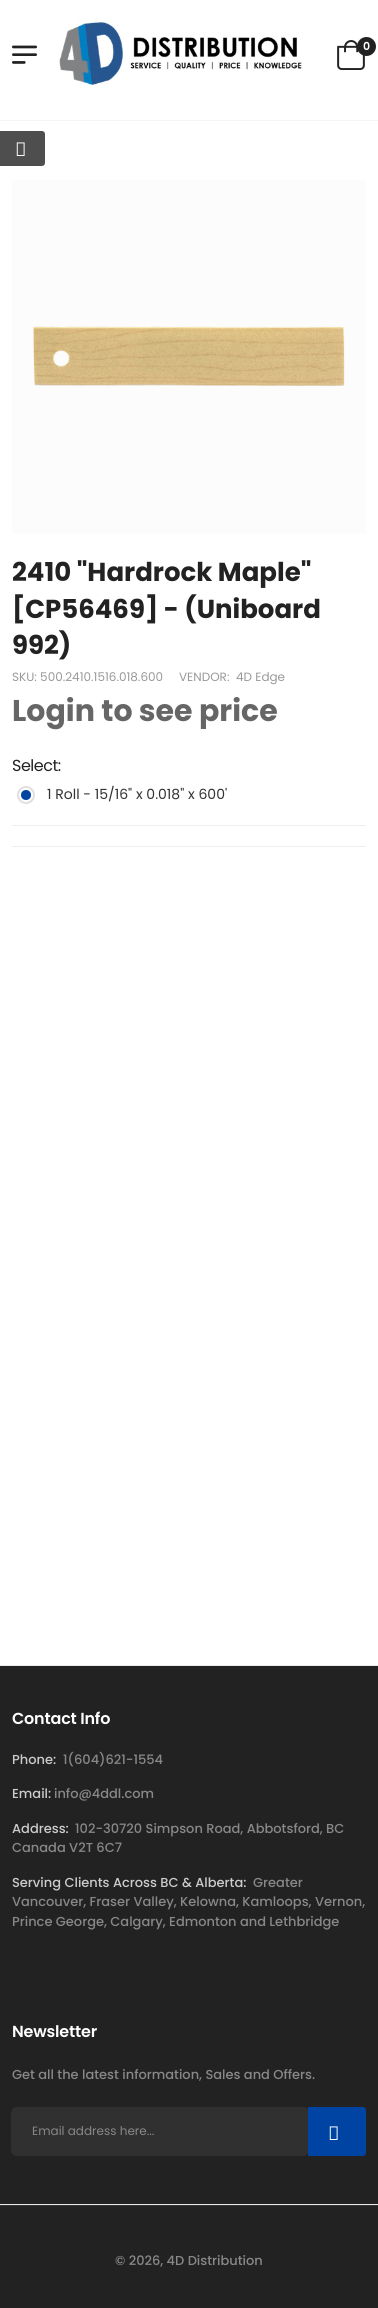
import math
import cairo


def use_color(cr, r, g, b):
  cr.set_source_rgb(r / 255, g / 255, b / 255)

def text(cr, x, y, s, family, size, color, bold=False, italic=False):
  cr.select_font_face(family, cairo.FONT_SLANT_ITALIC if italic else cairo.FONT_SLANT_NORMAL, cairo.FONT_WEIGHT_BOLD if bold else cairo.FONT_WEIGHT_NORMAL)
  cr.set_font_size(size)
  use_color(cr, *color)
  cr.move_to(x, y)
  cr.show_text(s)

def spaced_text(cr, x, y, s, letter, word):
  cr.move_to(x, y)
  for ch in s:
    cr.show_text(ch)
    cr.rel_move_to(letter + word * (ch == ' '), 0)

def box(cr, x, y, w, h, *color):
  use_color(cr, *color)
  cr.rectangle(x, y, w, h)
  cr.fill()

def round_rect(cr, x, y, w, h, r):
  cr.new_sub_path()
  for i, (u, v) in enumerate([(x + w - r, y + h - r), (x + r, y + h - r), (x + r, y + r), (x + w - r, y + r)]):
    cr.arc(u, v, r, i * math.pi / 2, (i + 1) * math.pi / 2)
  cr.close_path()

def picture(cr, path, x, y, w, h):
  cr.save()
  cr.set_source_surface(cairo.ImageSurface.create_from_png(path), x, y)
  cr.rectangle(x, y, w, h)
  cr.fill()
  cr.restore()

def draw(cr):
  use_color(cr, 255, 255, 255)
  cr.paint()
  picture(cr, "img_01.png", 12, 45, 25, 19)
  picture(cr, "img_02.png", 59, 18, 243, 67)
  picture(cr, "img_03.png", 337, 40, 28, 30)
  use_color(cr, 34, 34, 34)
  cr.arc(366.5, 46.5, 9.5, 0, 2 * math.pi)
  cr.fill()
  box(cr, 0, 120, 378, 1, 244, 244, 244)
  use_color(cr, 78, 78, 78)
  round_rect(cr, -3, 131, 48, 35, 3)
  cr.fill()
  picture(cr, "img_04.png", 16, 142, 9, 14)
  box(cr, 12, 180, 354, 354, 252, 252, 252)
  picture(cr, "img_05.png", 33, 326, 312, 60)
  cr.arc(26, 795, 8, 0, 2 * math.pi)
  use_color(cr, 224, 224, 224)
  cr.stroke()
  use_color(cr, 0, 68, 163)
  cr.arc(26, 795, 5, 0, 2 * math.pi)
  cr.fill()
  box(cr, 12, 825, 354, 1, 238, 238, 238)
  box(cr, 12, 846, 354, 1, 238, 238, 238)
  box(cr, 0, 1666, 378, 642, 34, 34, 34)
  box(cr, 0, 1665, 378, 1, 235, 235, 235)
  use_color(cr, 48, 48, 48)
  round_rect(cr, 12, 2108, 296, 47, 5)
  cr.fill()
  round_rect(cr, 11.5, 2107.5, 297, 48, 5.5)
  cr.set_source_rgba(0.686, 0.686, 0.686, 0.1)
  cr.set_line_width(1)
  cr.stroke()
  use_color(cr, 0, 68, 163)
  cr.new_path()
  cr.move_to(309, 2108)
  cr.line_to(363, 2108)
  cr.curve_to(364, 2108, 365, 2109, 365, 2110)
  cr.line_to(365, 2153)
  cr.curve_to(365, 2154, 364, 2155, 363, 2155)
  cr.line_to(309, 2155)
  cr.close_path()
  cr.fill_preserve()
  cr.set_line_width(2)
  cr.stroke()
  picture(cr, "img_06.png", 329, 2126, 9, 14)
  box(cr, 0, 2204, 378, 1, 235, 235, 235)
  box(cr, 0, 2205, 378, 1, 51, 51, 51)
  text(cr, 363, 50, "0", "Poppins SemiBold", 11, (255, 255, 255))
  text(cr, 12, 581, "2410 \"Hardrock Maple\"", "Poppins", 26, (34, 34, 34), bold=True)
  text(cr, 12, 618, "[CP56469] - (Uniboard", "Poppins", 26, (34, 34, 34), bold=True)
  text(cr, 12, 654, "992)", "Poppins", 26, (34, 34, 34), bold=True)
  text(cr, 12, 681, "SKU: 500.2410.1516.018.600", "Poppins", 12, (153, 153, 153))
  text(cr, 179, 681, "VENDOR:", "Poppins", 12, (153, 153, 153))
  text(cr, 236, 681, "4D Edge", "Poppins", 12, (153, 153, 153))
  text(cr, 12, 721, "Login to see price", "Poppins", 30, (102, 102, 102), bold=True)
  cr.select_font_face("Poppins")
  cr.set_font_size(16)
  use_color(cr, 34, 34, 34)
  spaced_text(cr, 12, 771, "Select:", -0.5, 0)
  text(cr, 47, 799, "1 Roll - 15/16\" x 0.018\" x 600'", "Poppins", 14, (51, 51, 51))
  cr.select_font_face("Poppins SemiBold")
  cr.set_font_size(16)
  use_color(cr, 255, 255, 255)
  spaced_text(cr, 12, 1724, "Contact Info", -0.2, 0)
  text(cr, 12, 1764, "Phone:", "Poppins Medium", 13, (204, 204, 204))
  text(cr, 63, 1764, "1(604)621-1554", "Poppins Medium", 13, (136, 136, 136))
  text(cr, 12, 1798, "Email:", "Poppins Medium", 13, (204, 204, 204))
  text(cr, 54, 1798, "info@4ddl.com", "Poppins Medium", 13, (136, 136, 136))
  text(cr, 12, 1833, "Address:", "Poppins Medium", 13, (204, 204, 204))
  text(cr, 75, 1833, "102-30720 Simpson Road, Abbotsford, BC", "Poppins Medium", 13, (136, 136, 136))
  text(cr, 12, 1852, "Canada V2T 6C7", "Poppins Medium", 13, (136, 136, 136))
  text(cr, 12, 1887, "Serving Clients Across BC & Alberta:", "Poppins Medium", 13, (204, 204, 204))
  text(cr, 253, 1887, "Greater", "Poppins Medium", 13, (136, 136, 136))
  text(cr, 12, 1906, "Vancouver, Fraser Valley, Kelowna, Kamloops, Vernon,", "Poppins Medium", 13, (136, 136, 136))
  text(cr, 12, 1926, "Prince George, Calgary, Edmonton and Lethbridge", "Poppins Medium", 13, (136, 136, 136))
  cr.select_font_face("Poppins SemiBold")
  cr.set_font_size(16)
  use_color(cr, 255, 255, 255)
  spaced_text(cr, 12, 2037, "Newsletter", -0.2, 0)
  text(cr, 12, 2079, "Get all the latest information, Sales and Offers.", "Poppins Medium", 13, (136, 136, 136))
  text(cr, 32, 2135, "Email address here...", "Poppins", 12, (136, 136, 136))
  text(cr, 115, 2265, "© 2026, 4D Distribution", "Poppins Medium", 13, (136, 136, 136))


surface = cairo.ImageSurface(cairo.FORMAT_RGB24, 378, 2308)
cr = cairo.Context(surface)
options = cairo.FontOptions()
options.set_hint_metrics(cairo.HINT_METRICS_OFF)
options.set_hint_style(cairo.HINT_STYLE_NONE)
cr.set_font_options(options)
cr.set_miter_limit(4)
draw(cr)
surface.write_to_png("out.png")
